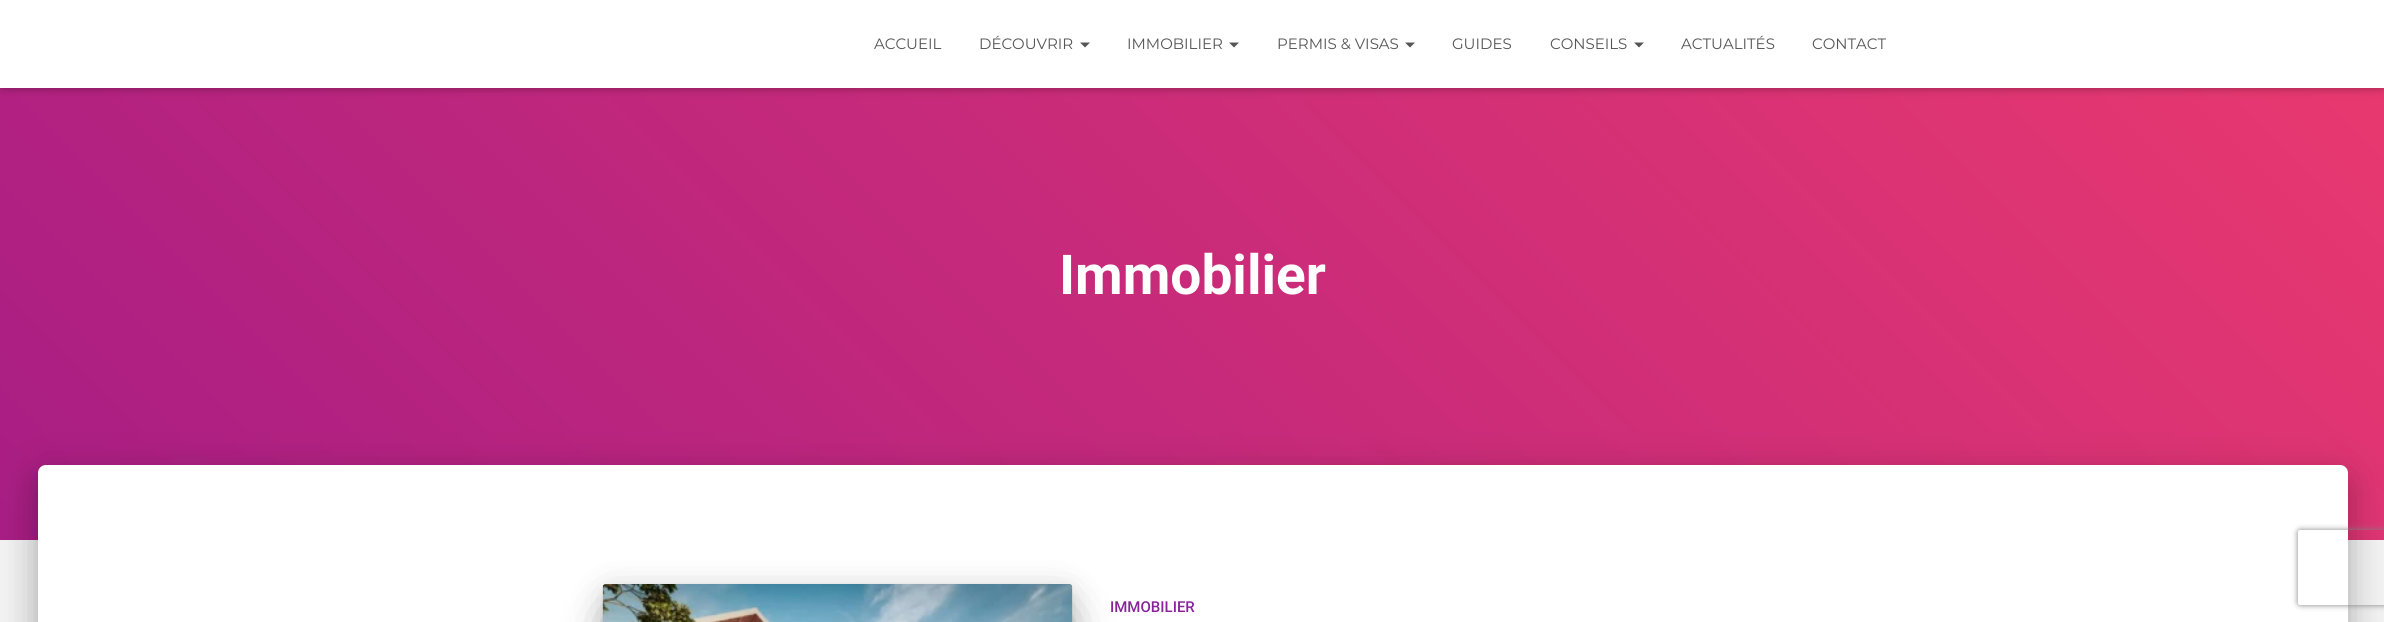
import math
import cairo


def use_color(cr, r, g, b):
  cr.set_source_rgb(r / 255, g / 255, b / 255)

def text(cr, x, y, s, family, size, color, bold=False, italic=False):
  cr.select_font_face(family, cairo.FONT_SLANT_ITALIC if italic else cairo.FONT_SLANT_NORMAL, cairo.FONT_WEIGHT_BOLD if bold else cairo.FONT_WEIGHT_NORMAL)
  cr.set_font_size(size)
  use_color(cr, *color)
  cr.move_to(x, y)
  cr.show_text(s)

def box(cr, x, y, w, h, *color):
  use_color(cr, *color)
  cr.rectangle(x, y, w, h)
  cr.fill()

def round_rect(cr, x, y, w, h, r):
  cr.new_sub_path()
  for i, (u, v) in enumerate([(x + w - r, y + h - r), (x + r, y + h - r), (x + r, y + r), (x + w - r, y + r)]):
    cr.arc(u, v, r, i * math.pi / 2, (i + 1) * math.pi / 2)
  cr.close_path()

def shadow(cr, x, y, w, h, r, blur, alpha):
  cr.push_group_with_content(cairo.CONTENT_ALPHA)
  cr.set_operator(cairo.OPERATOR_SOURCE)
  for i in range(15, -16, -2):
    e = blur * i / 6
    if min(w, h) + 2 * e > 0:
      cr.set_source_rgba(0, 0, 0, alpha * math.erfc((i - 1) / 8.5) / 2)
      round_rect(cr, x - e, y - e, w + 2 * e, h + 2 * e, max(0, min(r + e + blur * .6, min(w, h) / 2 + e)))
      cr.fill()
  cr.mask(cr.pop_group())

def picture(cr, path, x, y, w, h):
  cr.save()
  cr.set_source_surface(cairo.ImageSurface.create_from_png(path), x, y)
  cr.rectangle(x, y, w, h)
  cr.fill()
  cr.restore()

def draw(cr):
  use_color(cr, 242, 242, 242)
  cr.paint()
  gradient = cairo.LinearGradient(461, 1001, 1924, -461)
  gradient.add_color_stop_rgba(0, 0.659, 0.114, 0.518, 1)
  gradient.add_color_stop_rgba(1, 0.918, 0.224, 0.435, 1)
  cr.set_source(gradient)
  cr.rectangle(0, 88, 2384, 452)
  cr.fill()
  use_color(cr, 0, 0, 0)
  shadow(cr, 3, 8, 2380, 82, 0, 3, 0.1)
  shadow(cr, 0, 1, 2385, 88, 0, 6, 0.12)
  shadow(cr, 8, 9, 2370, 72, 0, 6, 0.42)
  box(cr, 0, 0, 2384, 88, 255, 255, 255)
  use_color(cr, 85, 85, 85)
  cr.new_path()
  cr.move_to(1080, 42.5)
  cr.line_to(1090, 42.5)
  cr.line_to(1085, 47.5)
  cr.close_path()
  cr.fill()
  cr.new_path()
  cr.move_to(1229, 42.5)
  cr.line_to(1239, 42.5)
  cr.line_to(1234, 47.5)
  cr.close_path()
  cr.fill()
  cr.new_path()
  cr.move_to(1405, 42.5)
  cr.line_to(1415, 42.5)
  cr.line_to(1410, 47.5)
  cr.close_path()
  cr.fill()
  cr.new_path()
  cr.move_to(1634, 42.5)
  cr.line_to(1644, 42.5)
  cr.line_to(1639, 47.5)
  cr.close_path()
  cr.fill()
  use_color(cr, 0, 0, 0)
  shadow(cr, 44, 481, 2297, 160, 1, 6, 0.2)
  shadow(cr, 31, 466, 2323, 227, 14, 19, 0.12)
  shadow(cr, 35, 483, 2315, 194, 10, 15, 0.14)
  use_color(cr, 255, 255, 255)
  cr.new_path()
  cr.move_to(46, 465)
  cr.line_to(2340, 465)
  cr.curve_to(2344.5, 465, 2348, 468.5, 2348, 473)
  cr.line_to(2348, 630)
  cr.line_to(38, 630)
  cr.line_to(38, 473)
  cr.curve_to(38, 468.5, 41.5, 465, 46, 465)
  cr.close_path()
  cr.fill()
  use_color(cr, 0, 0, 0)
  shadow(cr, 609, 600, 457, 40, 0, 6, 0.2)
  shadow(cr, 603, 589, 470, 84, 4, 15.5, 0.12)
  shadow(cr, 618, 619, 440, 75, 0, 24, 0.56)
  picture(cr, "img_01.png", 602, 584, 471, 38)
  cr.save()
  cr.set_fill_rule(cairo.FILL_RULE_EVEN_ODD)
  cr.new_path()
  cr.move_to(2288, 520)
  cr.line_to(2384, 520)
  cr.line_to(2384, 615)
  cr.line_to(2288, 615)
  cr.close_path()
  cr.move_to(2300.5, 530)
  cr.line_to(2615.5, 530)
  cr.curve_to(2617, 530, 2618, 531, 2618, 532.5)
  cr.line_to(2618, 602.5)
  cr.curve_to(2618, 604, 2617, 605, 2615.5, 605)
  cr.line_to(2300.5, 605)
  cr.curve_to(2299, 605, 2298, 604, 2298, 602.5)
  cr.line_to(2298, 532.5)
  cr.curve_to(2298, 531, 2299, 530, 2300.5, 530)
  cr.close_path()
  cr.clip()
  use_color(cr, 128, 128, 128)
  shadow(cr, 2298, 530, 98, 75, 2.5, 3, 1)
  cr.restore()
  text(cr, 874, 49, "ACCUEIL", "Montserrat", 15, (85, 85, 85))
  text(cr, 979, 49, "DÉCOUVRIR", "Montserrat", 15, (85, 85, 85))
  text(cr, 1127, 49, "IMMOBILIER", "Montserrat", 15, (85, 85, 85))
  text(cr, 1277, 49, "PERMIS & VISAS", "Montserrat", 15, (85, 85, 85))
  text(cr, 1452, 49, "GUIDES", "Montserrat", 15, (85, 85, 85))
  text(cr, 1550, 49, "CONSEILS", "Montserrat", 15, (85, 85, 85))
  text(cr, 1681, 49, "ACTUALITÉS", "Montserrat", 15, (85, 85, 85))
  text(cr, 1812, 49, "CONTACT", "Montserrat", 15, (85, 85, 85))
  text(cr, 1059, 294, "Immobilier", "Roboto", 55, (255, 255, 255), bold=True)
  text(cr, 1110, 612, "IMMOBILIER", "Roboto Medium", 15, (137, 34, 155))


surface = cairo.ImageSurface(cairo.FORMAT_RGB24, 2384, 622)
cr = cairo.Context(surface)
options = cairo.FontOptions()
options.set_hint_metrics(cairo.HINT_METRICS_OFF)
options.set_hint_style(cairo.HINT_STYLE_NONE)
cr.set_font_options(options)
cr.set_miter_limit(4)
draw(cr)
surface.write_to_png("out.png")
